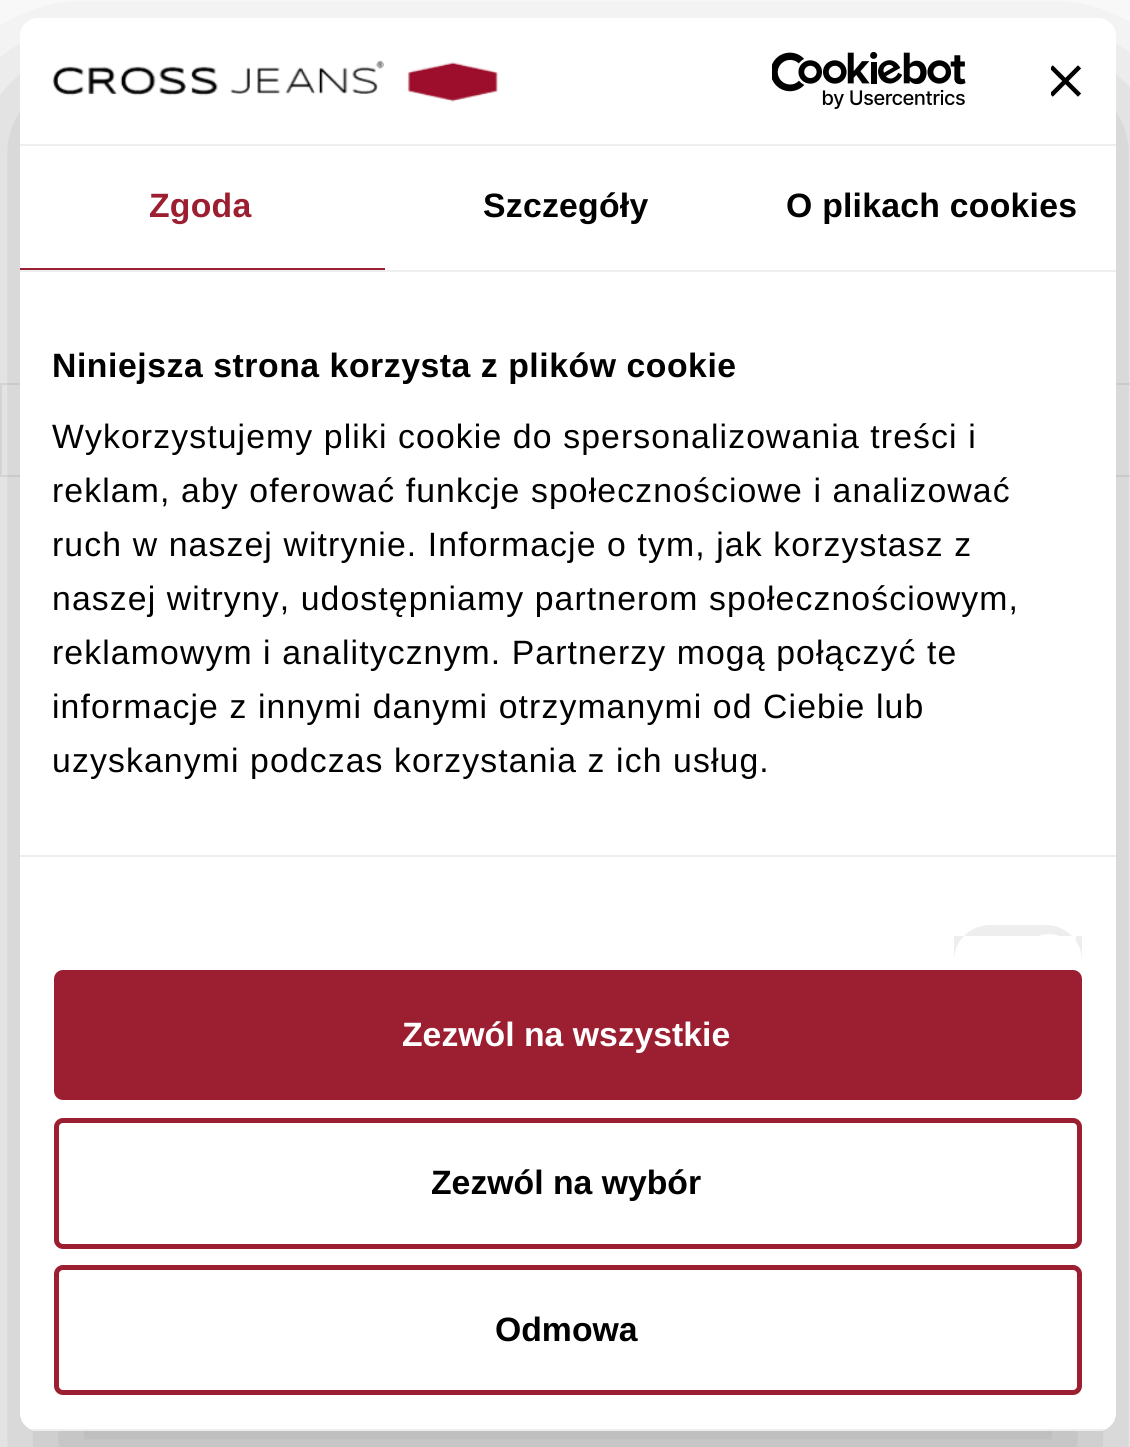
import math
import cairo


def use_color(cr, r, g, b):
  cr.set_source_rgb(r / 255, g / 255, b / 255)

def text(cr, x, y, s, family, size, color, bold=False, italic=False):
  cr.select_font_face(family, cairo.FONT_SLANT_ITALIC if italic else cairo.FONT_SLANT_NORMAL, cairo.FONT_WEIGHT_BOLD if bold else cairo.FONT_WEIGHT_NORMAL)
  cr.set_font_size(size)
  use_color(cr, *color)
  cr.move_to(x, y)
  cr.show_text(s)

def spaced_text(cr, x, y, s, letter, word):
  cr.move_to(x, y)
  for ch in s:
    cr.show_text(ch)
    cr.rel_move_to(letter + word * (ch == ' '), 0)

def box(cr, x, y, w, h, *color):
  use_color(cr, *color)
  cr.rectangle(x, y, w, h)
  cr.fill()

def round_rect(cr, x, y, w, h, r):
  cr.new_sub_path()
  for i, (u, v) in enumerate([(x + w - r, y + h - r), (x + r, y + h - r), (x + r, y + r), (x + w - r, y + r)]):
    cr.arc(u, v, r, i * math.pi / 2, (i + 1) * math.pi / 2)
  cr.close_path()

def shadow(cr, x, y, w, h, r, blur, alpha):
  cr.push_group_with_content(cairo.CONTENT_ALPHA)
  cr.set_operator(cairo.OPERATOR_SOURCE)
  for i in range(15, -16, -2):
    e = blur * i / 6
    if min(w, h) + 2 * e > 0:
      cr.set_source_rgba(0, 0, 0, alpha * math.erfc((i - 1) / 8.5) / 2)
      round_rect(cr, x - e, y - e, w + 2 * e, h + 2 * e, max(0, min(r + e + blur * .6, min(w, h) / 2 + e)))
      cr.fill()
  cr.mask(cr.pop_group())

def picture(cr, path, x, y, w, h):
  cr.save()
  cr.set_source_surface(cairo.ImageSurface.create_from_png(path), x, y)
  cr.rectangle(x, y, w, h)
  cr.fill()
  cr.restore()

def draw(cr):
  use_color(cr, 255, 255, 255)
  cr.paint()
  cr.rectangle(1, 384, 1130, 92)
  use_color(cr, 239, 237, 237)
  cr.stroke()
  use_color(cr, 0, 0, 0)
  shadow(cr, 20, 90, 1096, 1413, 18, 76.5, 0.3)
  use_color(cr, 255, 255, 255)
  round_rect(cr, 20, 18, 1096, 1413, 18)
  cr.fill()
  box(cr, 20, 144, 1096, 2, 238, 238, 238)
  picture(cr, "img_01.png", 52, 60, 446, 42)
  picture(cr, "img_02.png", 772, 52, 194, 57)
  picture(cr, "img_03.png", 1051, 65, 30, 32)
  box(cr, 20, 270, 1096, 2, 238, 238, 238)
  box(cr, 20, 268, 365, 2, 156, 31, 49)
  box(cr, 20, 855, 1096, 2, 238, 238, 238)
  cr.new_path()
  cr.move_to(990, 925)
  cr.line_to(1046, 925)
  cr.curve_to(1066, 925, 1082, 941, 1082, 961)
  cr.line_to(1082, 936)
  cr.line_to(954, 936)
  cr.line_to(954, 961)
  cr.curve_to(954, 941, 970, 925, 990, 925)
  cr.close_path()
  cr.fill()
  use_color(cr, 255, 255, 255)
  cr.new_path()
  cr.move_to(1049, 934)
  cr.curve_to(1064, 934, 1076, 946, 1076, 961)
  cr.line_to(1076, 936)
  cr.line_to(1022, 936)
  cr.line_to(1022, 961)
  cr.curve_to(1022, 946, 1034, 934, 1049, 934)
  cr.close_path()
  cr.fill()
  cr.save()
  round_rect(cr, 20, 18, 1096, 1413, 18)
  cr.clip()
  box(cr, 30, 1429, 1076, 2, 238, 238, 238)
  cr.restore()
  use_color(cr, 156, 31, 49)
  round_rect(cr, 56.5, 972.5, 1023, 125, 6.5)
  cr.fill_preserve()
  cr.set_line_width(5)
  cr.stroke()
  round_rect(cr, 56.5, 1120.5, 1023, 126, 6.5)
  cr.stroke()
  round_rect(cr, 56.5, 1267.5, 1023, 125, 6.5)
  cr.stroke()
  cr.select_font_face("Liberation Sans", cairo.FONT_SLANT_NORMAL, cairo.FONT_WEIGHT_BOLD)
  cr.set_font_size(33.75)
  spaced_text(cr, 149, 217, "Zgoda", 0.25, 0)
  use_color(cr, 0, 0, 0)
  spaced_text(cr, 483, 217, "Szczegóły", 0.25, 0)
  spaced_text(cr, 786, 217, "O plikach cookies", 0.25, 0)
  spaced_text(cr, 52, 377, "Niniejsza strona korzysta z plików cookie", 0.55, 0)
  cr.select_font_face("Liberation Sans")
  spaced_text(cr, 52, 448, "Wykorzystujemy pliki cookie do spersonalizowania treści i", 1.12, 0)
  spaced_text(cr, 52, 502, "reklam, aby oferować funkcje społecznościowe i analizować", 1.12, 0)
  spaced_text(cr, 52, 556, "ruch w naszej witrynie. Informacje o tym, jak korzystasz z", 1.12, 0)
  spaced_text(cr, 52, 610, "naszej witryny, udostępniamy partnerom społecznościowym,", 1.12, 0)
  spaced_text(cr, 52, 664, "reklamowym i analitycznym. Partnerzy mogą połączyć te", 1.12, 0)
  spaced_text(cr, 52, 718, "informacje z innymi danymi otrzymanymi od Ciebie lub", 1.12, 0)
  spaced_text(cr, 52, 772, "uzyskanymi podczas korzystania z ich usług.", 1.12, 0)
  text(cr, 402, 1046, "Zezwól na wszystkie", "Liberation Sans", 33.75, (255, 255, 255), bold=True)
  text(cr, 431, 1194, "Zezwól na wybór", "Liberation Sans", 33.75, (0, 0, 0), bold=True)
  text(cr, 495, 1341, "Odmowa", "Liberation Sans", 33.75, (0, 0, 0), bold=True)


surface = cairo.ImageSurface(cairo.FORMAT_RGB24, 1130, 1447)
cr = cairo.Context(surface)
options = cairo.FontOptions()
options.set_hint_metrics(cairo.HINT_METRICS_OFF)
options.set_hint_style(cairo.HINT_STYLE_NONE)
cr.set_font_options(options)
cr.set_miter_limit(4)
draw(cr)
surface.write_to_png("out.png")
